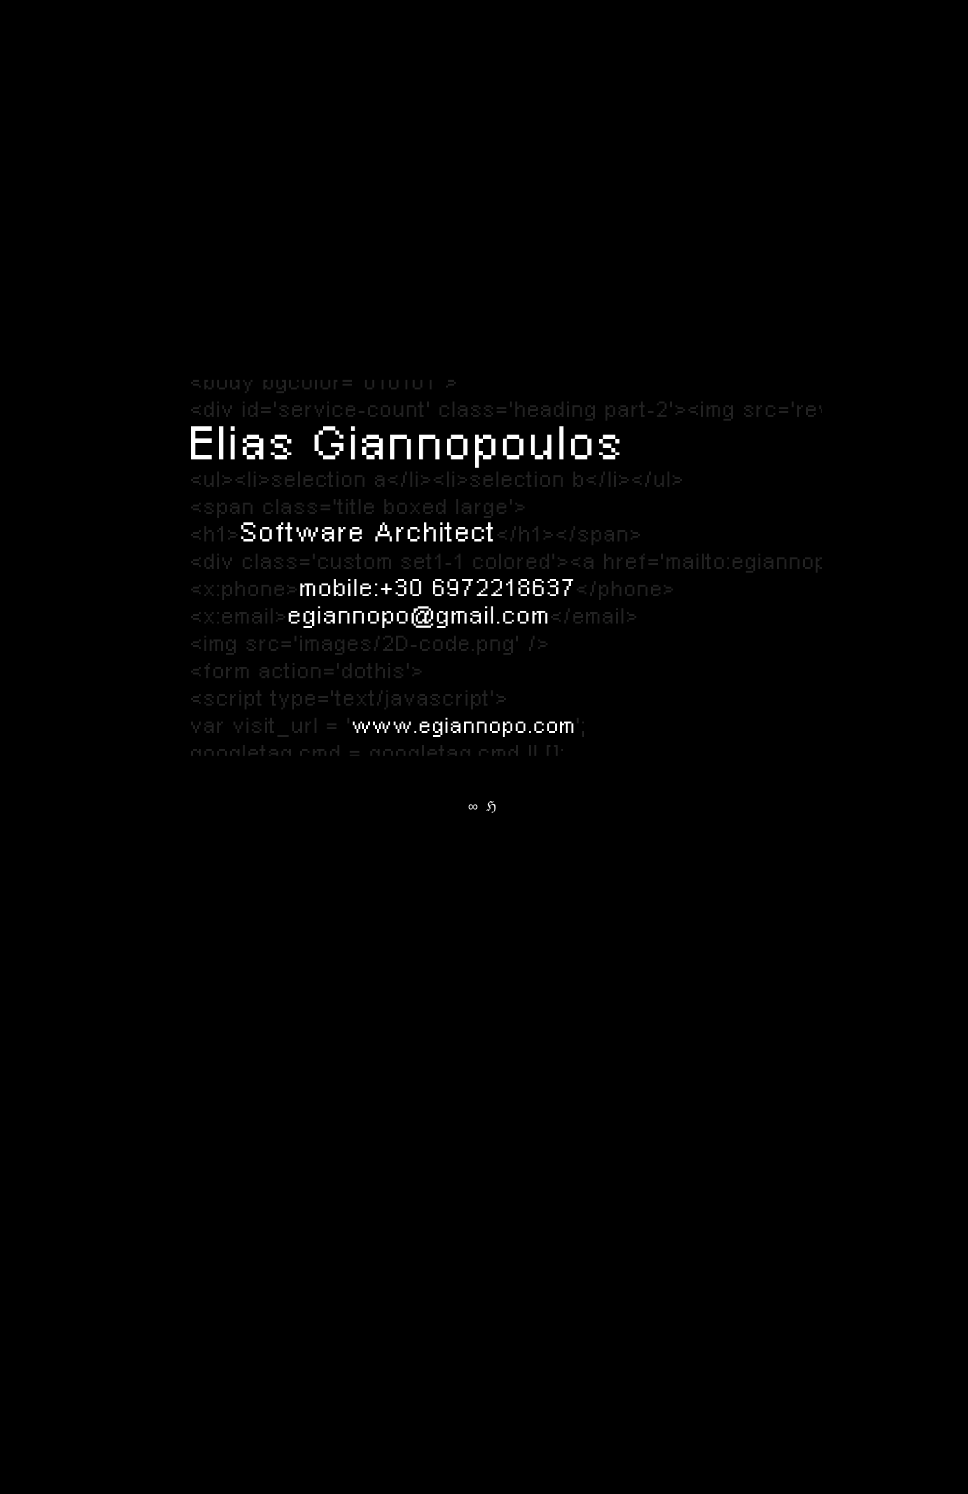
import math
import cairo


def use_color(cr, r, g, b):
  cr.set_source_rgb(r / 255, g / 255, b / 255)

def text(cr, x, y, s, family, size, color, bold=False, italic=False):
  cr.select_font_face(family, cairo.FONT_SLANT_ITALIC if italic else cairo.FONT_SLANT_NORMAL, cairo.FONT_WEIGHT_BOLD if bold else cairo.FONT_WEIGHT_NORMAL)
  cr.set_font_size(size)
  use_color(cr, *color)
  cr.move_to(x, y)
  cr.show_text(s)

def picture(cr, path, x, y, w, h):
  cr.save()
  cr.set_source_surface(cairo.ImageSurface.create_from_png(path), x, y)
  cr.rectangle(x, y, w, h)
  cr.fill()
  cr.restore()

def draw(cr):
  use_color(cr, 0, 0, 0)
  cr.paint()
  picture(cr, "img_01.png", 191, 379, 631, 377)
  text(cr, 468, 811, "∞", "Liberation Sans", 14, (250, 250, 250))
  text(cr, 486, 811, "ℌ", "Noto Sans", 14, (250, 250, 250))


surface = cairo.ImageSurface(cairo.FORMAT_RGB24, 968, 1494)
cr = cairo.Context(surface)
options = cairo.FontOptions()
options.set_hint_metrics(cairo.HINT_METRICS_OFF)
options.set_hint_style(cairo.HINT_STYLE_NONE)
cr.set_font_options(options)
cr.set_miter_limit(4)
draw(cr)
surface.write_to_png("out.png")
